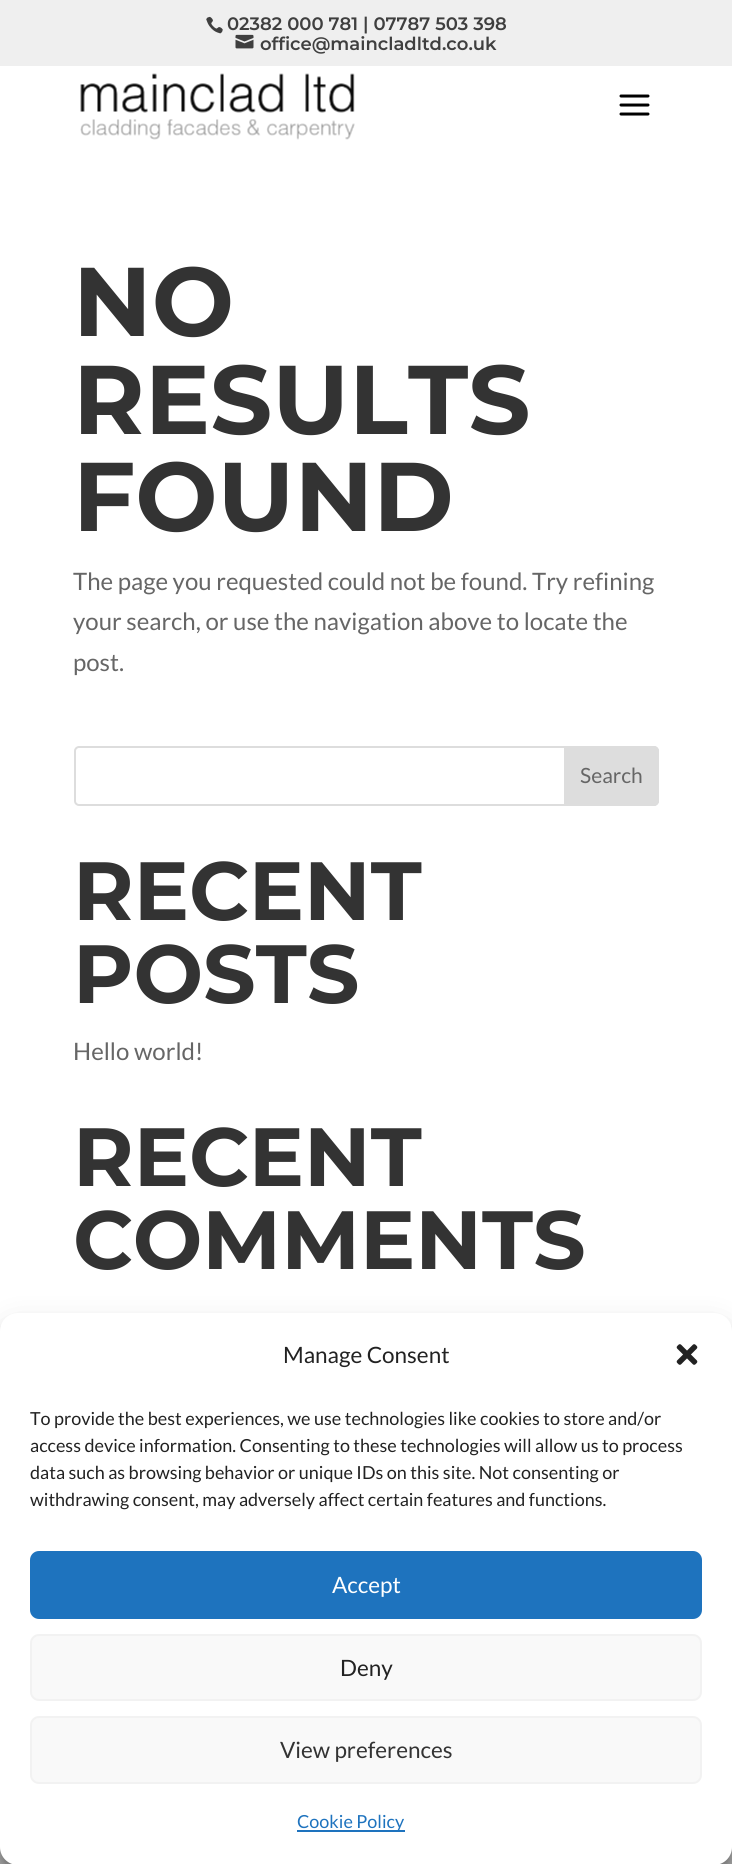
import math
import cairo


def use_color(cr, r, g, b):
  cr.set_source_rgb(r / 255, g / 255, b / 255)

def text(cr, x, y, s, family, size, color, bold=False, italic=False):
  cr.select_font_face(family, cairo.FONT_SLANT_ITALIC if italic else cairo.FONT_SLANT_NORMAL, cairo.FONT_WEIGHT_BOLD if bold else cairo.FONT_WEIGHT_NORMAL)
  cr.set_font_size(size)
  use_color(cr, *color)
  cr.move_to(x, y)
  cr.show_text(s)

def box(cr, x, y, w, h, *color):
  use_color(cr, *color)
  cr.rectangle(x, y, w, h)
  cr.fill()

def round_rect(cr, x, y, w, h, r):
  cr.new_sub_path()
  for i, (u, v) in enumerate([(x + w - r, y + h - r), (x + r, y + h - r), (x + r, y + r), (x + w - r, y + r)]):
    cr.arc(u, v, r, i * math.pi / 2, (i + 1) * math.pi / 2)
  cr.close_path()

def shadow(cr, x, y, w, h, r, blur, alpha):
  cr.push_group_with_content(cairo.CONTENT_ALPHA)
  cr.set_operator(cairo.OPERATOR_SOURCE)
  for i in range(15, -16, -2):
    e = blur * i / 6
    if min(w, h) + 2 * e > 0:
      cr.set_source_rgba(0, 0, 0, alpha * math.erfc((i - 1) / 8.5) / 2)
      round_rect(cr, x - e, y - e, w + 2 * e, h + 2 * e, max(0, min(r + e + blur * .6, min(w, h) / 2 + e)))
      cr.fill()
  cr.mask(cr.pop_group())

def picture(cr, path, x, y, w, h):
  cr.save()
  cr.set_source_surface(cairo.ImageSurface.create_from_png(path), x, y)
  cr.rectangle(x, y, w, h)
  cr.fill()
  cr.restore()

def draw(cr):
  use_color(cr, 255, 255, 255)
  cr.paint()
  box(cr, 0, 0, 732, 66, 239, 239, 239)
  picture(cr, "img_01.png", 206, 16, 17, 18)
  picture(cr, "img_02.png", 235, 34, 19, 15)
  picture(cr, "img_03.png", 80, 73, 275, 67)
  picture(cr, "img_04.png", 619, 94, 31, 22)
  round_rect(cr, 75, 747, 583, 58, 4)
  use_color(cr, 221, 221, 221)
  cr.stroke()
  cr.new_path()
  cr.move_to(565, 747)
  cr.line_to(654, 747)
  cr.curve_to(656, 747, 658, 749, 658, 751)
  cr.line_to(658, 801)
  cr.curve_to(658, 803, 656, 805, 654, 805)
  cr.line_to(565, 805)
  cr.close_path()
  cr.fill_preserve()
  cr.stroke()
  box(cr, 0, 1847, 732, 17, 178, 178, 178)
  use_color(cr, 0, 0, 0)
  shadow(cr, 0, 1322, 732, 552, 18, 4.5, 0.23)
  shadow(cr, 0, 1328, 732, 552, 18, 15, 0.19)
  use_color(cr, 128, 128, 128)
  shadow(cr, 627, 1754, 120, 90, 3, 4, 1)
  use_color(cr, 255, 255, 255)
  round_rect(cr, 0, 1313, 732, 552, 18)
  cr.fill()
  picture(cr, "img_05.png", 676, 1344, 22, 21)
  use_color(cr, 30, 115, 190)
  round_rect(cr, 31, 1552, 670, 66, 8)
  cr.fill_preserve()
  cr.stroke()
  use_color(cr, 249, 249, 249)
  round_rect(cr, 31, 1635, 670, 65, 8)
  cr.fill_preserve()
  use_color(cr, 242, 242, 242)
  cr.stroke()
  use_color(cr, 249, 249, 249)
  round_rect(cr, 31, 1717, 670, 66, 8)
  cr.fill_preserve()
  use_color(cr, 242, 242, 242)
  cr.stroke()
  box(cr, 297, 1830, 108, 2, 30, 115, 190)
  text(cr, 227, 30, "02382 000 781 | 07787 503 398", "Montserrat SemiBold", 18, (63, 63, 63))
  text(cr, 260, 50, "office@maincladltd.co.uk", "Montserrat SemiBold", 18, (63, 63, 63))
  text(cr, 73, 336, "NO", "Montserrat", 97.5, (51, 51, 51), bold=True)
  text(cr, 73, 434, "RESULTS", "Montserrat", 97.5, (51, 51, 51), bold=True)
  text(cr, 73, 531, "FOUND", "Montserrat", 97.5, (51, 51, 51), bold=True)
  text(cr, 73, 590, "The page you requested could not be found. Try refining", "Lato", 24, (102, 102, 102))
  text(cr, 73, 630, "your search, or use the navigation above to locate the", "Lato", 24, (102, 102, 102))
  text(cr, 73, 671, "post.", "Lato", 24, (102, 102, 102))
  text(cr, 580, 783, "Search", "Lato", 21, (102, 102, 102))
  text(cr, 73, 920, "RECENT", "Montserrat", 82.5, (51, 51, 51), bold=True)
  text(cr, 73, 1003, "POSTS", "Montserrat", 82.5, (51, 51, 51), bold=True)
  text(cr, 73, 1060, "Hello world!", "Lato", 24, (102, 102, 102))
  text(cr, 73, 1186, "RECENT", "Montserrat", 82.5, (51, 51, 51), bold=True)
  text(cr, 73, 1269, "COMMENTS", "Montserrat", 82.5, (51, 51, 51), bold=True)
  text(cr, 283, 1363, "Manage Consent", "Lato", 22.5, (34, 34, 34))
  text(cr, 30, 1425, "To provide the best experiences, we use technologies like cookies to store and/or", "Lato", 18, (34, 34, 34))
  text(cr, 30, 1452, "access device information. Consenting to these technologies will allow us to process", "Lato", 18, (34, 34, 34))
  text(cr, 30, 1479, "data such as browsing behavior or unique IDs on this site. Not consenting or", "Lato", 18, (34, 34, 34))
  text(cr, 30, 1506, "withdrawing consent, may adversely affect certain features and functions.", "Lato", 18, (34, 34, 34))
  text(cr, 332, 1593, "Accept", "Lato", 22.5, (255, 255, 255))
  text(cr, 340, 1676, "Deny", "Lato", 22.5, (34, 34, 34))
  text(cr, 280, 1758, "View preferences", "Lato", 22.5, (51, 51, 51))
  text(cr, 297, 1828, "Cookie Policy", "Lato", 18, (30, 115, 190))


surface = cairo.ImageSurface(cairo.FORMAT_RGB24, 732, 1864)
cr = cairo.Context(surface)
options = cairo.FontOptions()
options.set_hint_metrics(cairo.HINT_METRICS_OFF)
options.set_hint_style(cairo.HINT_STYLE_NONE)
cr.set_font_options(options)
cr.set_miter_limit(4)
draw(cr)
surface.write_to_png("out.png")
